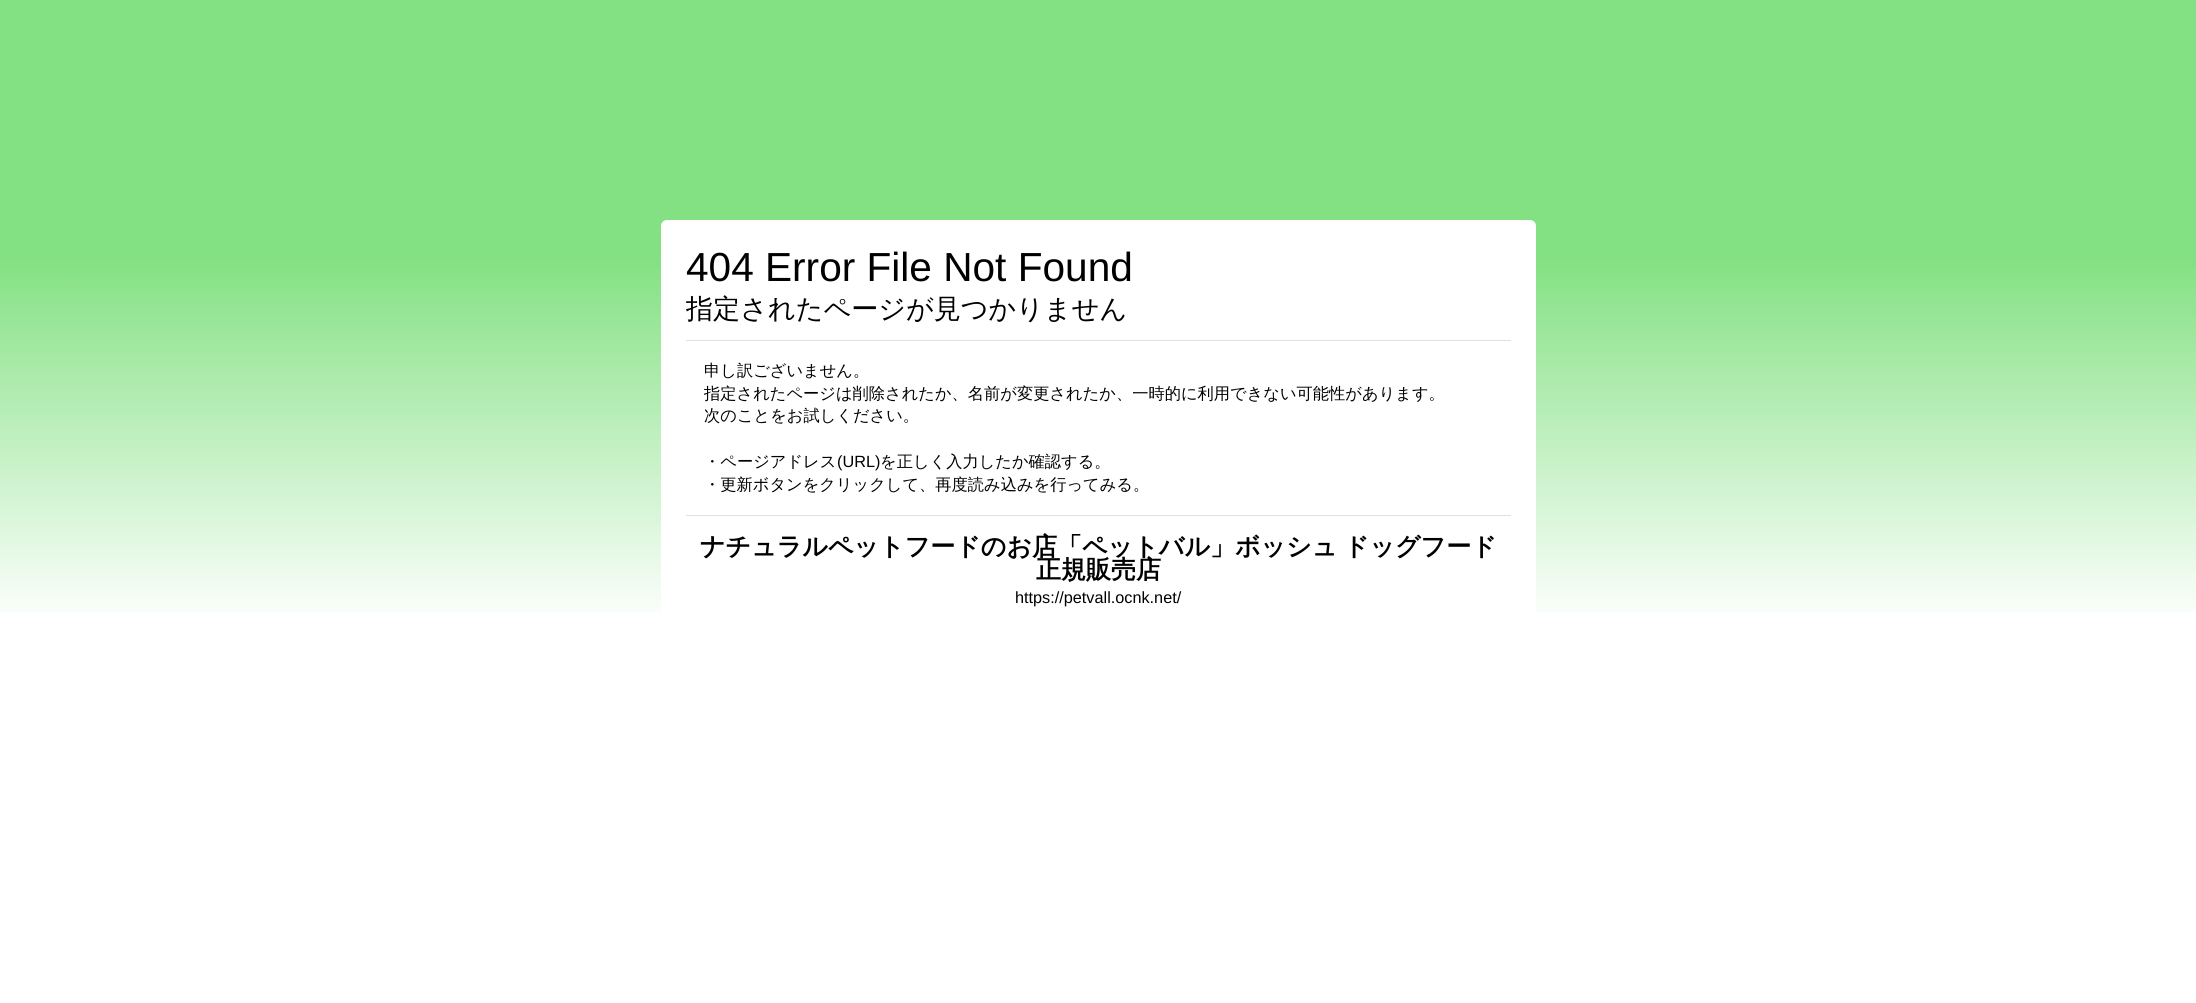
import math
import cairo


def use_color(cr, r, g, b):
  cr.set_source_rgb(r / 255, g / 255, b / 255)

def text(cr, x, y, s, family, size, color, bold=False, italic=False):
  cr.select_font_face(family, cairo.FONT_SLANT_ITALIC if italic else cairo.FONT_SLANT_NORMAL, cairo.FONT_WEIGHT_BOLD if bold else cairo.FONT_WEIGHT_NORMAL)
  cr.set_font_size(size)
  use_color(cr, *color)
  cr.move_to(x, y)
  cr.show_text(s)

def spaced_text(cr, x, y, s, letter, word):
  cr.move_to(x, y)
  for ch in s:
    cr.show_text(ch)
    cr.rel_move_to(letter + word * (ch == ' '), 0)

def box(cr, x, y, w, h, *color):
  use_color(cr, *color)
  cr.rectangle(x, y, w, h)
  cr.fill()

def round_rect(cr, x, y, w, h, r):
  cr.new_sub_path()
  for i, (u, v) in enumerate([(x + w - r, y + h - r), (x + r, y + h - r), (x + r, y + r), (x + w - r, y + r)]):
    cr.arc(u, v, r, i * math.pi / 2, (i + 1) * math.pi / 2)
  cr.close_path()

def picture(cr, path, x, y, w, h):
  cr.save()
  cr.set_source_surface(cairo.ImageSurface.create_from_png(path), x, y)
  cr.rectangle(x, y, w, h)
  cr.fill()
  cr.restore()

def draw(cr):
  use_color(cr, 255, 255, 255)
  cr.paint()
  picture(cr, "img_01.png", 0, 0, 2196, 612)
  use_color(cr, 255, 255, 255)
  round_rect(cr, 661, 220, 875, 415, 6)
  cr.fill()
  box(cr, 686, 340, 825, 1, 224, 223, 227)
  box(cr, 686, 515, 825, 1, 224, 223, 227)
  text(cr, 686, 281, "404 Error File Not Found", "Liberation Sans", 40.6, (0, 0, 0))
  text(cr, 686, 318, "指定されたページが見つかりません", "WenQuanYi Zen Hei Medium", 27.1, (0, 0, 0))
  text(cr, 704, 376, "申し訳ございません。", "WenQuanYi Zen Hei Medium", 16.25, (0, 0, 0))
  text(cr, 704, 399, "指定されたページは削除されたか、名前が変更されたか、一時的に利用できない可能性があります。", "WenQuanYi Zen Hei Medium", 16.25, (0, 0, 0))
  text(cr, 704, 421, "次のことをお試しください。", "WenQuanYi Zen Hei Medium", 16.25, (0, 0, 0))
  text(cr, 704, 467, "・ページアドレス", "WenQuanYi Zen Hei Medium", 16.25, (0, 0, 0))
  text(cr, 837, 467, "(URL)", "Liberation Sans", 16.25, (0, 0, 0))
  text(cr, 880, 467, "を正しく入力したか確認する。", "WenQuanYi Zen Hei Medium", 16.25, (0, 0, 0))
  text(cr, 704, 490, "・更新ボタンをクリックして、再度読み込みを行ってみる。", "WenQuanYi Zen Hei Medium", 16.25, (0, 0, 0))
  cr.select_font_face("WenQuanYi Zen Hei", cairo.FONT_SLANT_NORMAL, cairo.FONT_WEIGHT_BOLD)
  cr.set_font_size(25)
  spaced_text(cr, 700, 555, "ナチュラルペットフードのお店「ペットバル」ボッシュ ドッグフード", 0, -1)
  text(cr, 1036, 578, "正規販売店", "WenQuanYi Zen Hei", 25, (0, 0, 0), bold=True)
  text(cr, 1015, 603, "https://petvall.ocnk.net/", "Liberation Sans", 16.25, (0, 0, 0))


surface = cairo.ImageSurface(cairo.FORMAT_RGB24, 2196, 1003)
cr = cairo.Context(surface)
options = cairo.FontOptions()
options.set_hint_metrics(cairo.HINT_METRICS_OFF)
options.set_hint_style(cairo.HINT_STYLE_NONE)
cr.set_font_options(options)
cr.set_miter_limit(4)
draw(cr)
surface.write_to_png("out.png")
